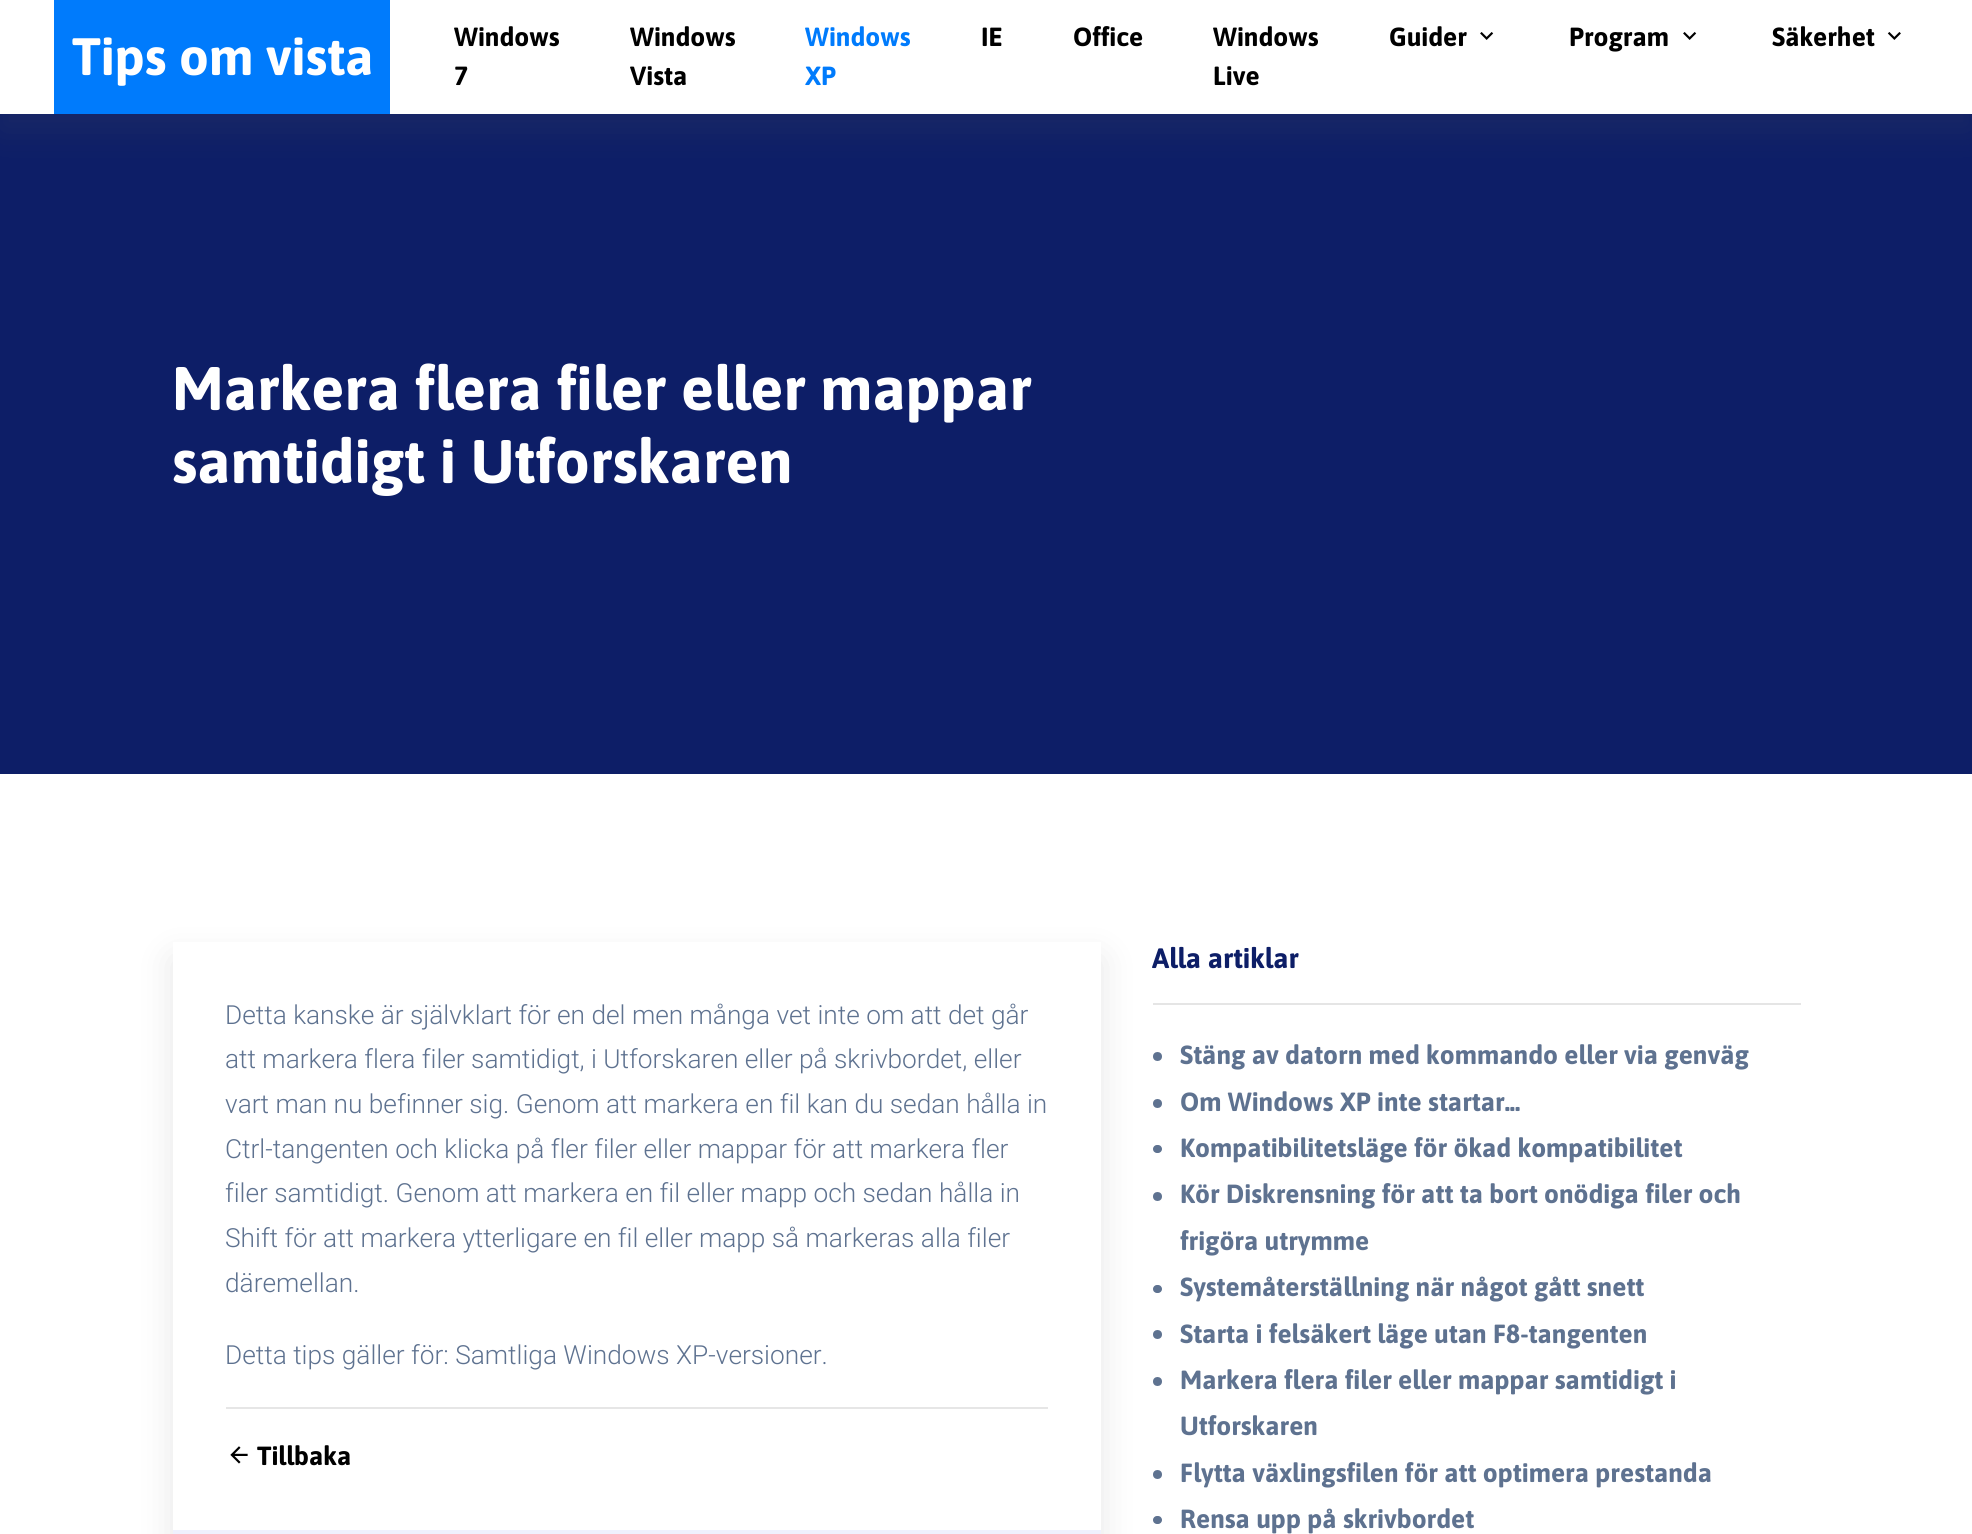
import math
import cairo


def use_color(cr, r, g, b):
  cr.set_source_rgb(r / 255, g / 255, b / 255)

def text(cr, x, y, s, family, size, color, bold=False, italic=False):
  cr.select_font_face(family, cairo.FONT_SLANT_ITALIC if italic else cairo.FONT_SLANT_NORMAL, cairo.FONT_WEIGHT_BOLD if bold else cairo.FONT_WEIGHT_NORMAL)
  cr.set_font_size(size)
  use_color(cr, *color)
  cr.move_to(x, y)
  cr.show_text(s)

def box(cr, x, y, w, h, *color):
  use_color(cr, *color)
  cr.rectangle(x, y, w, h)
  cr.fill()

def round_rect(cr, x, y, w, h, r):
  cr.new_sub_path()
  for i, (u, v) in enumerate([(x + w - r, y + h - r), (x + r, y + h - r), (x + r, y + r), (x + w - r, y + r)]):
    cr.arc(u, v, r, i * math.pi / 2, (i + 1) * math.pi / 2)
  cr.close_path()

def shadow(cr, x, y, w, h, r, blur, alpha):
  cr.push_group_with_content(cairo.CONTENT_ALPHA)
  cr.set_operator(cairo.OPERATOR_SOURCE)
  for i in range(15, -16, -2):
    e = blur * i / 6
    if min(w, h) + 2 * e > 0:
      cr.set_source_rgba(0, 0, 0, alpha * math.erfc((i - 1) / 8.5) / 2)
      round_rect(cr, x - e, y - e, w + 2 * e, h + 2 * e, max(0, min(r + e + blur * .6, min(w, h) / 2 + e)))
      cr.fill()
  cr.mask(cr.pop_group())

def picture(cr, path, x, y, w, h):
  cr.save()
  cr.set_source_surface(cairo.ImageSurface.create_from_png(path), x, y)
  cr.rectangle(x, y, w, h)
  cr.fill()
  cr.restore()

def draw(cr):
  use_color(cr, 255, 255, 255)
  cr.paint()
  box(cr, 0, 114, 1972, 660, 13, 30, 103)
  use_color(cr, 90, 91, 95)
  shadow(cr, 0, 18, 1972, 113, 0, 17.5, 0.15)
  box(cr, 0, 0, 1972, 114, 255, 255, 255)
  box(cr, 54, 0, 336, 114, 0, 123, 252)
  picture(cr, "img_01.png", 1480, 32, 14, 8)
  picture(cr, "img_01.png", 1683, 32, 14, 8)
  picture(cr, "img_02.png", 1887, 32, 14, 8)
  use_color(cr, 90, 91, 95)
  shadow(cr, 173, 959, 928, 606, 0, 17.5, 0.15)
  box(cr, 173, 942, 928, 588, 255, 255, 255)
  box(cr, 173, 1530, 928, 4, 239, 241, 254)
  box(cr, 226, 1407, 822, 2, 230, 230, 230)
  picture(cr, "img_03.png", 230, 1446, 18, 18)
  box(cr, 1153, 1003, 648, 2, 229, 229, 229)
  use_color(cr, 94, 114, 144)
  cr.arc(1157.5, 1056.5, 4.5, 0, 2 * math.pi)
  cr.fill()
  cr.arc(1157.5, 1103.5, 4.5, 0, 2 * math.pi)
  cr.fill()
  round_rect(cr, 1153, 1145, 9, 8, 4)
  cr.fill()
  cr.arc(1157.5, 1196.5, 4.5, 0, 2 * math.pi)
  cr.fill()
  round_rect(cr, 1153, 1285, 9, 8, 4)
  cr.fill()
  cr.arc(1157.5, 1334.5, 4.5, 0, 2 * math.pi)
  cr.fill()
  cr.arc(1157.5, 1381.5, 4.5, 0, 2 * math.pi)
  cr.fill()
  cr.arc(1157.5, 1474.5, 4.5, 0, 2 * math.pi)
  cr.fill()
  round_rect(cr, 1153, 1516, 9, 8, 4)
  cr.fill()
  text(cr, 72, 75, "Tips om vista", "Asap", 52.5, (255, 255, 255), bold=True)
  text(cr, 454, 46, "Windows", "Asap", 26.25, (0, 0, 0), bold=True)
  text(cr, 454, 85, "7", "Asap", 26.25, (0, 0, 0), bold=True)
  text(cr, 630, 46, "Windows", "Asap", 26.25, (0, 0, 0), bold=True)
  text(cr, 630, 85, "Vista", "Asap", 26.25, (0, 0, 0), bold=True)
  text(cr, 805, 46, "Windows", "Asap", 26.25, (0, 123, 252), bold=True)
  text(cr, 805, 85, "XP", "Asap", 26.25, (0, 123, 252), bold=True)
  text(cr, 981, 46, "IE", "Asap", 26.25, (0, 0, 0), bold=True)
  text(cr, 1073, 46, "Office", "Asap", 26.25, (0, 0, 0), bold=True)
  text(cr, 1213, 46, "Windows", "Asap", 26.25, (0, 0, 0), bold=True)
  text(cr, 1213, 85, "Live", "Asap", 26.25, (0, 0, 0), bold=True)
  text(cr, 1389, 46, "Guider", "Asap", 26.25, (0, 0, 0), bold=True)
  text(cr, 1569, 46, "Program", "Asap", 26.25, (0, 0, 0), bold=True)
  text(cr, 1772, 46, "Säkerhet", "Asap", 26.25, (0, 0, 0), bold=True)
  text(cr, 172, 410, "Markera flera filer eller mappar", "Asap", 61.25, (255, 255, 255), bold=True)
  text(cr, 172, 483, "samtidigt i Utforskaren", "Asap", 61.25, (255, 255, 255), bold=True)
  text(cr, 225, 1024, "Detta kanske är självklart för en del men många vet inte om att det går", "Roboto Light", 26.25, (94, 114, 144))
  text(cr, 225, 1068, "att markera flera filer samtidigt, i Utforskaren eller på skrivbordet, eller", "Roboto Light", 26.25, (94, 114, 144))
  text(cr, 225, 1113, "vart man nu befinner sig. Genom att markera en fil kan du sedan hålla in", "Roboto Light", 26.25, (94, 114, 144))
  text(cr, 225, 1158, "Ctrl-tangenten och klicka på fler filer eller mappar för att markera fler", "Roboto Light", 26.25, (94, 114, 144))
  text(cr, 225, 1202, "filer samtidigt. Genom att markera en fil eller mapp och sedan hålla in", "Roboto Light", 26.25, (94, 114, 144))
  text(cr, 225, 1247, "Shift för att markera ytterligare en fil eller mapp så markeras alla filer", "Roboto Light", 26.25, (94, 114, 144))
  text(cr, 225, 1292, "däremellan.", "Roboto Light", 26.25, (94, 114, 144))
  text(cr, 225, 1364, "Detta tips gäller för: Samtliga Windows XP-versioner.", "Roboto Light", 26.25, (94, 114, 144))
  text(cr, 257, 1465, "Tillbaka", "Asap", 26.25, (0, 0, 0), bold=True)
  text(cr, 1152, 968, "Alla artiklar", "Asap", 28, (13, 30, 103), bold=True)
  text(cr, 1180, 1064, "Stäng av datorn med kommando eller via genväg", "Asap", 26.25, (94, 114, 144), bold=True)
  text(cr, 1180, 1111, "Om Windows XP inte startar...", "Asap", 26.25, (94, 114, 144), bold=True)
  text(cr, 1180, 1157, "Kompatibilitetsläge för ökad kompatibilitet", "Asap", 26.25, (94, 114, 144), bold=True)
  text(cr, 1180, 1203, "Kör Diskrensning för att ta bort onödiga filer och", "Asap", 26.25, (94, 114, 144), bold=True)
  text(cr, 1180, 1250, "frigöra utrymme", "Asap", 26.25, (94, 114, 144), bold=True)
  text(cr, 1180, 1296, "Systemåterställning när något gått snett", "Asap", 26.25, (94, 114, 144), bold=True)
  text(cr, 1180, 1343, "Starta i felsäkert läge utan F8-tangenten", "Asap", 26.25, (94, 114, 144), bold=True)
  text(cr, 1180, 1389, "Markera flera filer eller mappar samtidigt i", "Asap", 26.25, (94, 114, 144), bold=True)
  text(cr, 1180, 1435, "Utforskaren", "Asap", 26.25, (94, 114, 144), bold=True)
  text(cr, 1180, 1482, "Flytta växlingsfilen för att optimera prestanda", "Asap", 26.25, (94, 114, 144), bold=True)
  text(cr, 1180, 1528, "Rensa upp på skrivbordet", "Asap", 26.25, (94, 114, 144), bold=True)


surface = cairo.ImageSurface(cairo.FORMAT_RGB24, 1972, 1534)
cr = cairo.Context(surface)
options = cairo.FontOptions()
options.set_hint_metrics(cairo.HINT_METRICS_OFF)
options.set_hint_style(cairo.HINT_STYLE_NONE)
cr.set_font_options(options)
cr.set_miter_limit(4)
draw(cr)
surface.write_to_png("out.png")
